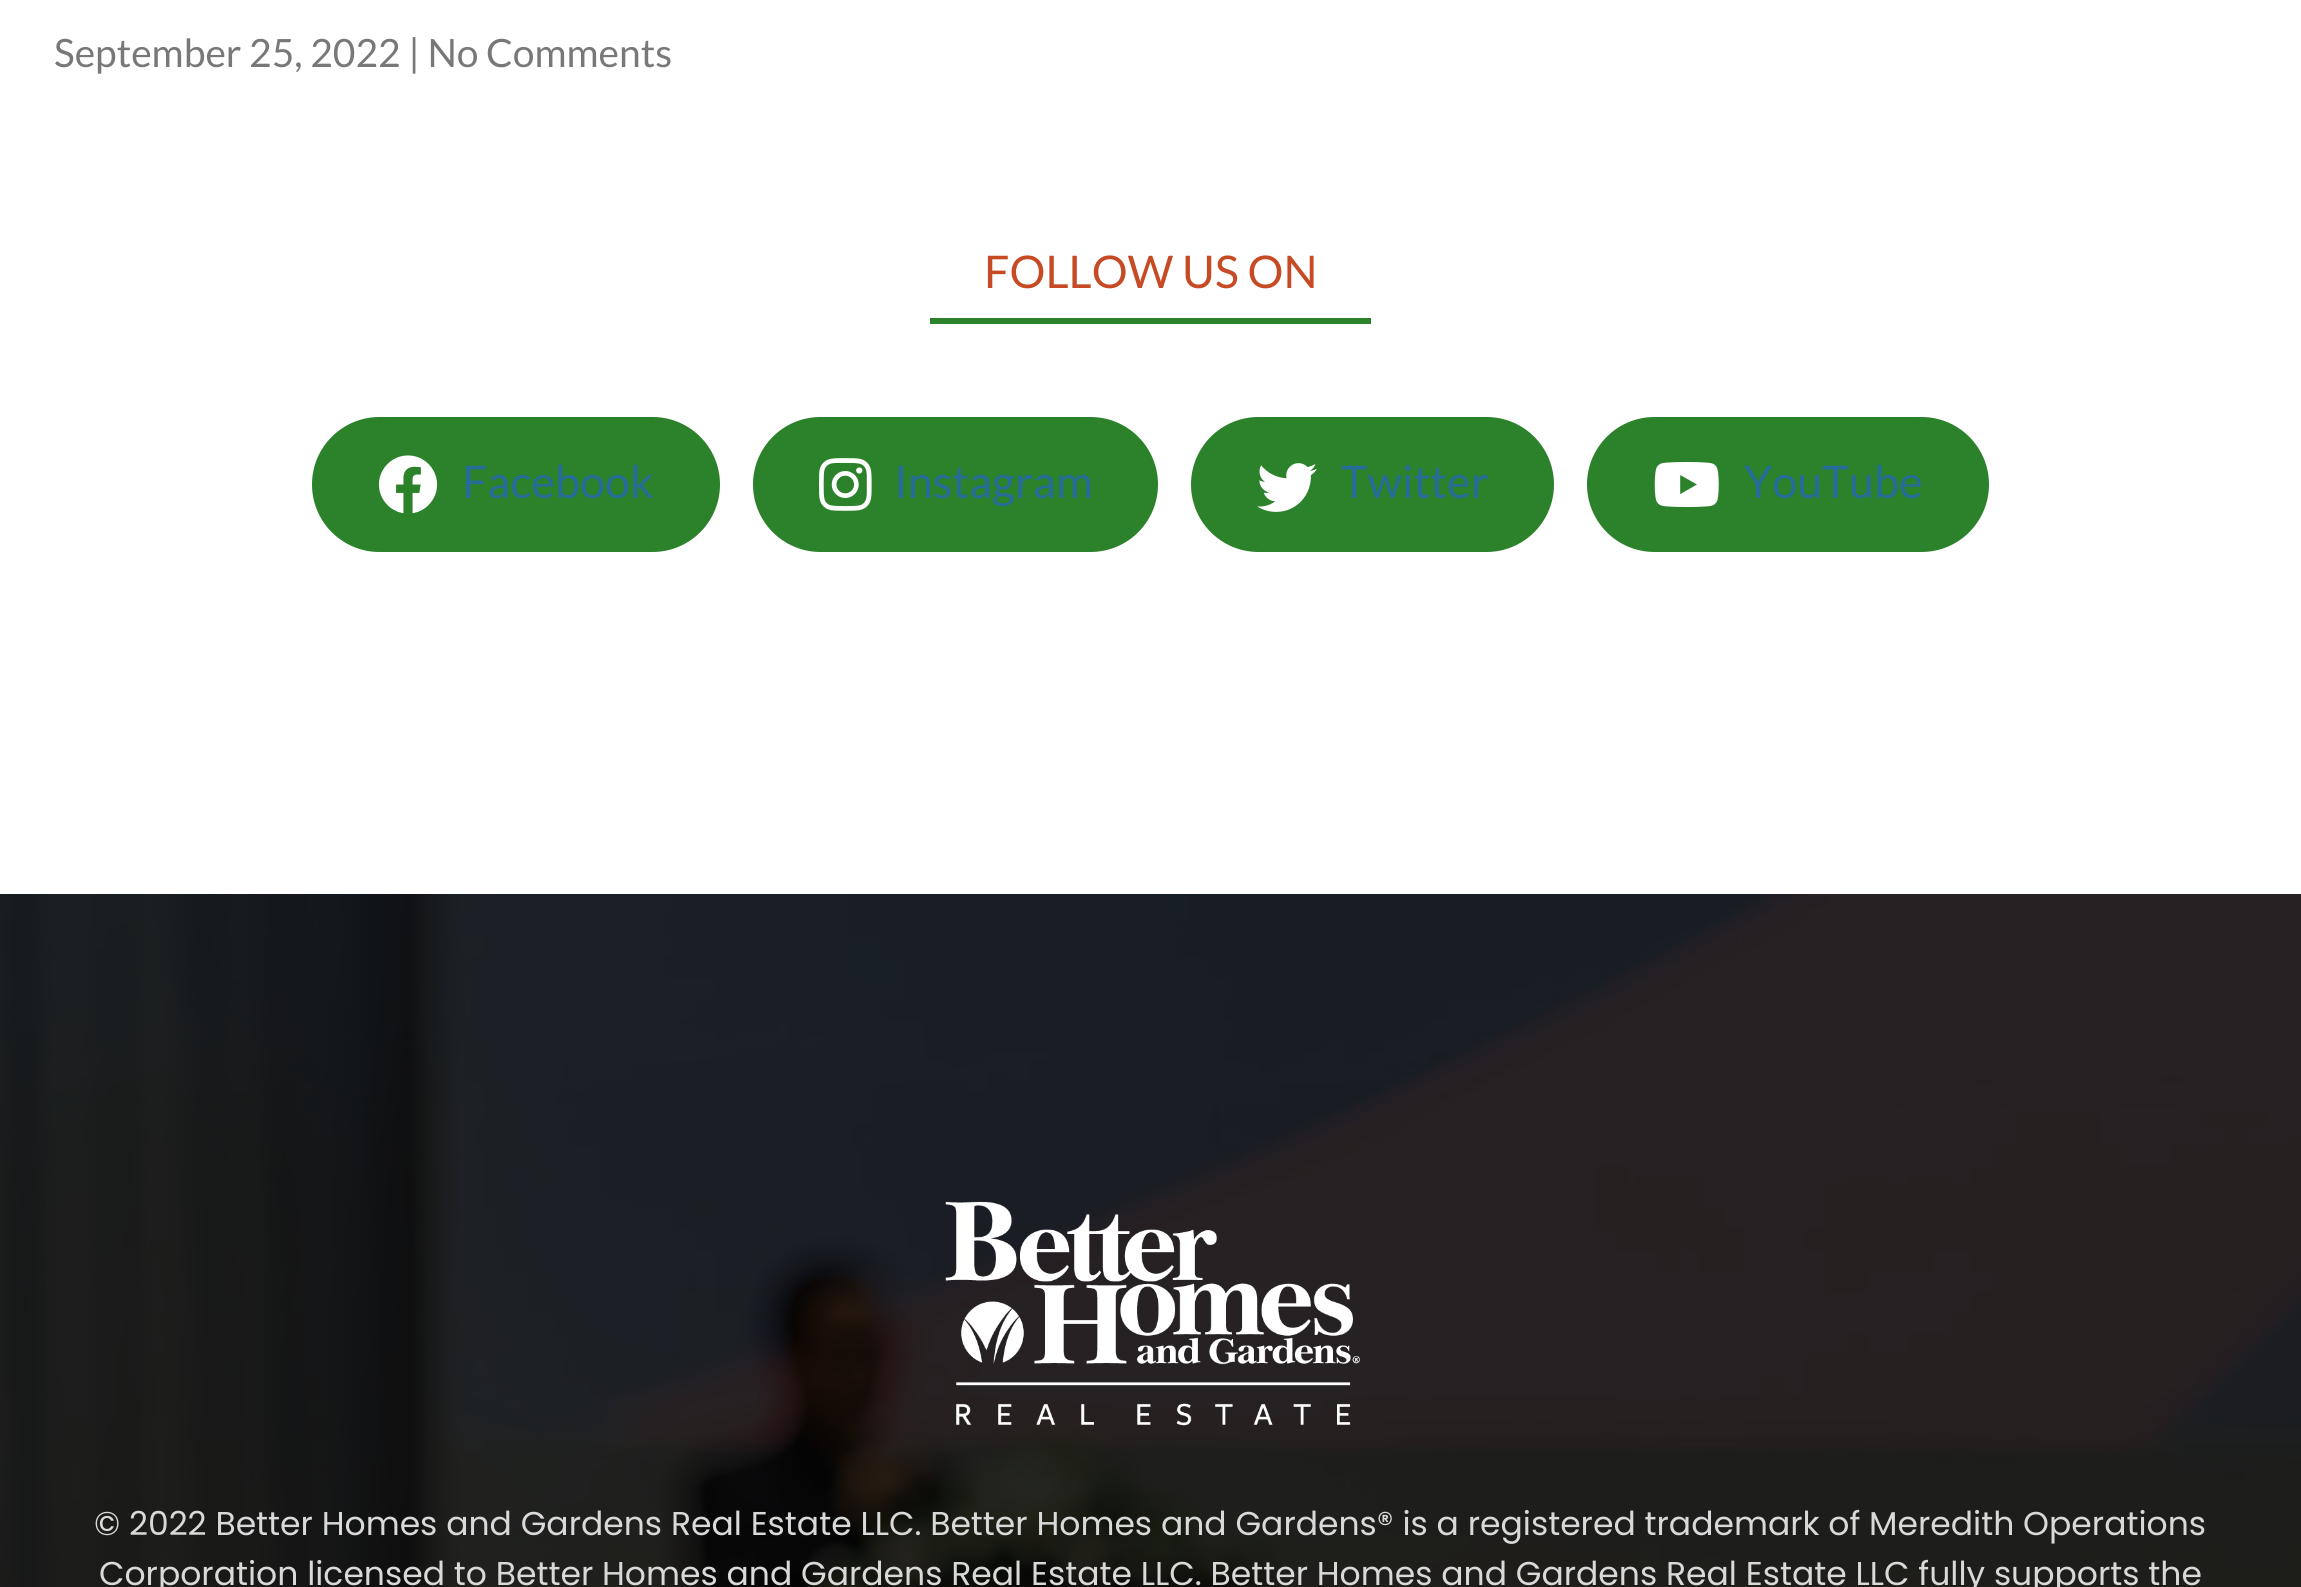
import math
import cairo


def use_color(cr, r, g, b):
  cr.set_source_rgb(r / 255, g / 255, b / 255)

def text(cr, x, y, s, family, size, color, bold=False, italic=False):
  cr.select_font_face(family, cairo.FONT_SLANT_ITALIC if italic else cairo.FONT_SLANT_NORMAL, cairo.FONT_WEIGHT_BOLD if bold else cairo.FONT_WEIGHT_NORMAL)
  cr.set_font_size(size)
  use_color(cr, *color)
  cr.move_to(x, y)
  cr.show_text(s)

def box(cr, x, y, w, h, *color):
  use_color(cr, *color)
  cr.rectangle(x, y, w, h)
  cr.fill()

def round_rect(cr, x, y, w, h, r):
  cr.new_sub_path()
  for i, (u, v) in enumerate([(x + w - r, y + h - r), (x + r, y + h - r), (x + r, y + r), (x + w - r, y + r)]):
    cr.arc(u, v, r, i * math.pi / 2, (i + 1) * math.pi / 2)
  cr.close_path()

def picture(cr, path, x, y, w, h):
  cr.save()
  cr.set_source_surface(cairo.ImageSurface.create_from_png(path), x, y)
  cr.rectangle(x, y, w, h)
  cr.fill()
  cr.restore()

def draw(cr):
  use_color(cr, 255, 255, 255)
  cr.paint()
  box(cr, 930, 318, 441, 6, 43, 130, 43)
  round_rect(cr, 312, 417, 408, 135, 67.5)
  cr.fill()
  picture(cr, "img_01.png", 378, 455, 60, 59)
  round_rect(cr, 753, 417, 405, 135, 67.5)
  cr.fill()
  picture(cr, "img_02.png", 819, 458, 53, 53)
  round_rect(cr, 1191, 417, 363, 135, 67.5)
  cr.fill()
  picture(cr, "img_03.png", 1257, 463, 60, 49)
  round_rect(cr, 1587, 417, 402, 135, 67.5)
  cr.fill()
  picture(cr, "img_04.png", 1654, 462, 65, 45)
  picture(cr, "img_05.png", 0, 894, 2301, 693)
  picture(cr, "img_06.png", 945, 1201, 415, 225)
  text(cr, 54, 67, "September 25, 2022 | No Comments", "Lato", 39, (120, 120, 120))
  text(cr, 984, 288, "FOLLOW US ON", "Lato", 45, (198, 74, 36))
  text(cr, 462, 498, "Facebook", "Lato", 45, (37, 108, 152))
  text(cr, 894, 498, "Instagram", "Lato", 45, (37, 108, 152))
  text(cr, 1341, 498, "Twitter", "Lato", 45, (37, 108, 152))
  text(cr, 1744, 498, "YouTube", "Lato", 45, (37, 108, 152))
  text(cr, 94, 1535, "© 2022 Better Homes and Gardens Real Estate LLC. Better Homes and Gardens® is a registered trademark of Meredith Operations", "Poppins", 33, (217, 217, 217))
  text(cr, 99, 1585, "Corporation licensed to Better Homes and Gardens Real Estate LLC. Better Homes and Gardens Real Estate LLC fully supports the", "Poppins", 33, (217, 217, 217))


surface = cairo.ImageSurface(cairo.FORMAT_RGB24, 2301, 1587)
cr = cairo.Context(surface)
options = cairo.FontOptions()
options.set_hint_metrics(cairo.HINT_METRICS_OFF)
options.set_hint_style(cairo.HINT_STYLE_NONE)
cr.set_font_options(options)
cr.set_miter_limit(4)
draw(cr)
surface.write_to_png("out.png")
